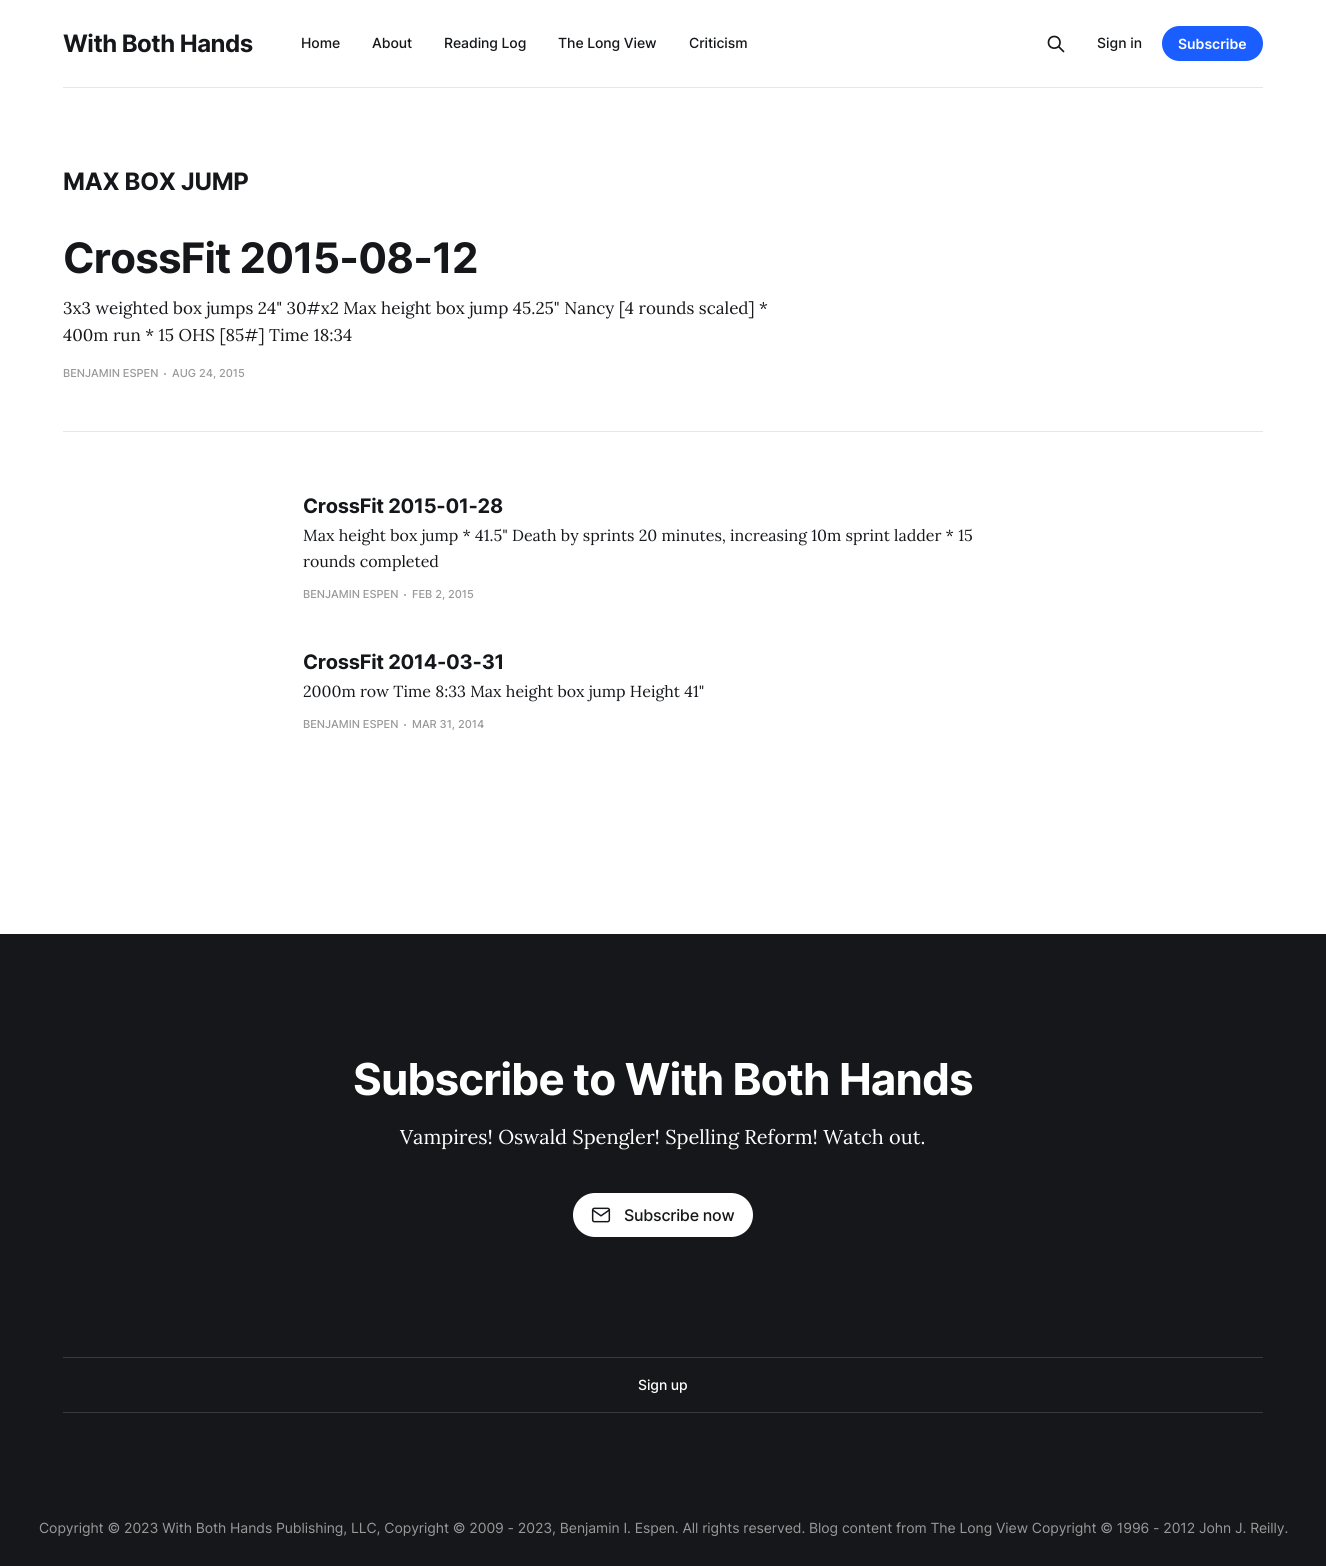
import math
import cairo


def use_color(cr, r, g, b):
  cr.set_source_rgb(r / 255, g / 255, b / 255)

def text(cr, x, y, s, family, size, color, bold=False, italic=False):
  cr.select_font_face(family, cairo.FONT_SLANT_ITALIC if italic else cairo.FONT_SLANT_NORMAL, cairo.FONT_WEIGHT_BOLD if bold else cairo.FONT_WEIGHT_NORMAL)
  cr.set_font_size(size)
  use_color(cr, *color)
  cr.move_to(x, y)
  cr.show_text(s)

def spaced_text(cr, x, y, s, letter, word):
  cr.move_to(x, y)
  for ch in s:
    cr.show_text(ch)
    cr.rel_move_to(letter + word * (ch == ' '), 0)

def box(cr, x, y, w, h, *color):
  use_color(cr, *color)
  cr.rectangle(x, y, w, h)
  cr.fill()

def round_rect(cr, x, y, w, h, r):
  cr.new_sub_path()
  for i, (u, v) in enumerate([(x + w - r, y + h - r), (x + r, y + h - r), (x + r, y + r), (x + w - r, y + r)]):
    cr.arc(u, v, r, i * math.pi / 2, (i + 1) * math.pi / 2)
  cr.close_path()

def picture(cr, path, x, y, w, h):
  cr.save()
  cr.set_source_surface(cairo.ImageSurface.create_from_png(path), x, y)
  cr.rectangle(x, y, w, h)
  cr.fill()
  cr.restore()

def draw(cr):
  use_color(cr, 255, 255, 255)
  cr.paint()
  box(cr, 63, 87, 1200, 1, 230, 230, 230)
  cr.new_path()
  cr.move_to(1063.5, 51.5)
  cr.line_to(1058.5, 46.5)
  cr.move_to(1060, 42.5)
  cr.curve_to(1060, 50, 1048.5, 50, 1048.5, 42.5)
  cr.curve_to(1048.5, 34.5, 1060, 34.5, 1060, 42.5)
  cr.close_path()
  use_color(cr, 21, 23, 26)
  cr.set_line_width(1.7)
  cr.set_line_cap(cairo.LINE_CAP_ROUND)
  cr.set_line_join(cairo.LINE_JOIN_ROUND)
  cr.stroke()
  use_color(cr, 26, 94, 255)
  round_rect(cr, 1162, 26, 101, 35, 17.5)
  cr.fill()
  box(cr, 63, 431, 1200, 1, 230, 230, 230)
  use_color(cr, 153, 153, 153)
  cr.arc(165, 374, 1, 0, 2 * math.pi)
  cr.fill()
  cr.arc(405, 595, 1, 0, 2 * math.pi)
  cr.fill()
  cr.arc(405, 725, 1, 0, 2 * math.pi)
  cr.fill()
  box(cr, 0, 934, 1326, 632, 21, 23, 26)
  use_color(cr, 255, 255, 255)
  round_rect(cr, 573, 1193, 180, 44, 22)
  cr.fill()
  picture(cr, "img_01.png", 591, 1207, 20, 16)
  box(cr, 63, 1357, 1200, 1, 56, 58, 60)
  box(cr, 63, 1412, 1200, 1, 56, 58, 60)
  cr.select_font_face("Inter", cairo.FONT_SLANT_NORMAL, cairo.FONT_WEIGHT_BOLD)
  cr.set_font_size(24)
  use_color(cr, 21, 23, 26)
  spaced_text(cr, 63, 52, "With Both Hands", -0.5, 0)
  cr.select_font_face("Inter Medium")
  cr.set_font_size(14)
  spaced_text(cr, 301, 48, "Home", -0.08, 0)
  spaced_text(cr, 372, 48, "About", -0.08, 0)
  spaced_text(cr, 444, 48, "Reading Log", -0.08, 0)
  spaced_text(cr, 558, 48, "The Long View", -0.08, 0)
  spaced_text(cr, 689, 48, "Criticism", -0.08, 0)
  text(cr, 1097, 48, "Sign in", "Inter Medium", 14, (21, 23, 26))
  text(cr, 1178, 49, "Subscribe", "Inter SemiBold", 14, (255, 255, 255))
  cr.select_font_face("Inter", cairo.FONT_SLANT_NORMAL, cairo.FONT_WEIGHT_BOLD)
  cr.set_font_size(24)
  use_color(cr, 21, 23, 26)
  spaced_text(cr, 63, 190, "MAX BOX JUMP", -0.25, 0)
  cr.set_font_size(42)
  spaced_text(cr, 63, 273, "CrossFit 2015-08-12", -0.8, 0)
  text(cr, 63, 314, "3x3 weighted box jumps 24\" 30#x2 Max height box jump 45.25\" Nancy [4 rounds scaled] *", "Lora", 17, (21, 23, 26))
  text(cr, 63, 341, "400m run * 15 OHS [85#] Time 18:34", "Lora", 17, (21, 23, 26))
  text(cr, 63, 377, "BENJAMIN ESPEN", "Inter Medium", 11, (153, 153, 153))
  text(cr, 172, 377, "AUG 24, 2015", "Inter Medium", 11, (153, 153, 153))
  cr.select_font_face("Inter", cairo.FONT_SLANT_NORMAL, cairo.FONT_WEIGHT_BOLD)
  cr.set_font_size(20)
  use_color(cr, 21, 23, 26)
  spaced_text(cr, 303, 513, "CrossFit 2015-01-28", -0.25, 0)
  text(cr, 303, 541, "Max height box jump * 41.5\" Death by sprints 20 minutes, increasing 10m sprint ladder * 15", "Lora", 16, (21, 23, 26))
  text(cr, 303, 567, "rounds completed", "Lora", 16, (21, 23, 26))
  text(cr, 303, 598, "BENJAMIN ESPEN", "Inter Medium", 11, (153, 153, 153))
  text(cr, 412, 598, "FEB 2, 2015", "Inter Medium", 11, (153, 153, 153))
  cr.select_font_face("Inter", cairo.FONT_SLANT_NORMAL, cairo.FONT_WEIGHT_BOLD)
  cr.set_font_size(20)
  use_color(cr, 21, 23, 26)
  spaced_text(cr, 303, 669, "CrossFit 2014-03-31", -0.25, 0)
  text(cr, 303, 697, "2000m row Time 8:33 Max height box jump Height 41\"", "Lora", 16, (21, 23, 26))
  text(cr, 303, 728, "BENJAMIN ESPEN", "Inter Medium", 11, (153, 153, 153))
  text(cr, 412, 728, "MAR 31, 2014", "Inter Medium", 11, (153, 153, 153))
  cr.select_font_face("Inter", cairo.FONT_SLANT_NORMAL, cairo.FONT_WEIGHT_BOLD)
  cr.set_font_size(44)
  use_color(cr, 255, 255, 255)
  spaced_text(cr, 353, 1095, "Subscribe to With Both Hands", -0.9, 0)
  text(cr, 400, 1144, "Vampires! Oswald Spengler! Spelling Reform! Watch out.", "Lora", 20, (255, 255, 255))
  cr.select_font_face("Inter Medium")
  cr.set_font_size(16)
  use_color(cr, 21, 23, 26)
  spaced_text(cr, 624, 1221, "Subscribe now", -0.25, 0)
  cr.set_font_size(14)
  use_color(cr, 255, 255, 255)
  spaced_text(cr, 638, 1390, "Sign up", -0.08, 0)
  cr.select_font_face("Inter")
  use_color(cr, 153, 153, 153)
  spaced_text(cr, 39, 1533, "Copyright © 2023 With Both Hands Publishing, LLC, Copyright © 2009 - 2023, Benjamin I. Espen. All rights reserved. Blog content from The Long View Copyright © 1996 - 2012 John J. Reilly.", -0.08, 0)


surface = cairo.ImageSurface(cairo.FORMAT_RGB24, 1326, 1566)
cr = cairo.Context(surface)
options = cairo.FontOptions()
options.set_hint_metrics(cairo.HINT_METRICS_OFF)
options.set_hint_style(cairo.HINT_STYLE_NONE)
cr.set_font_options(options)
cr.set_miter_limit(4)
draw(cr)
surface.write_to_png("out.png")
